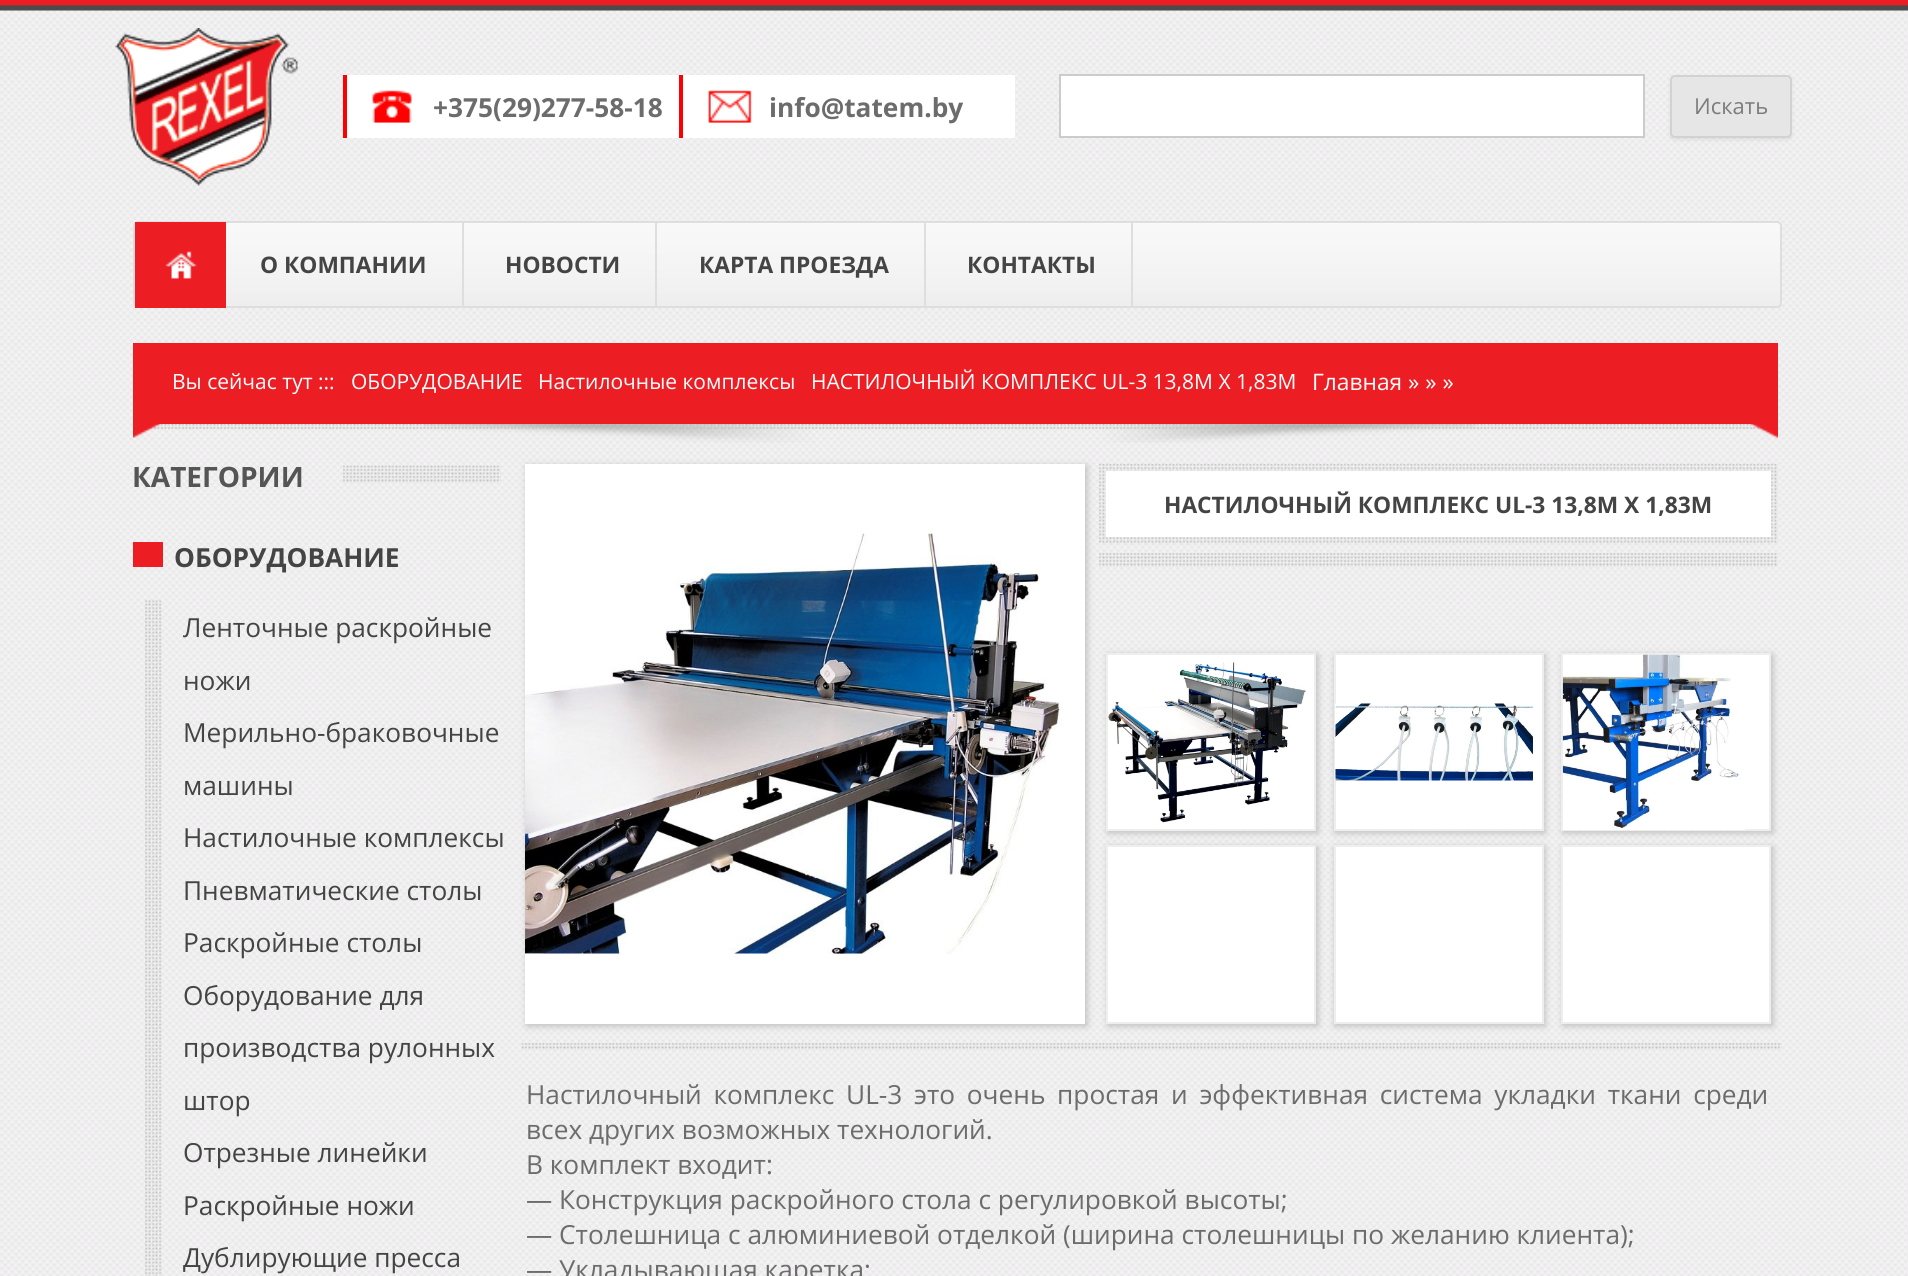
import math
import cairo


def use_color(cr, r, g, b):
  cr.set_source_rgb(r / 255, g / 255, b / 255)

def text(cr, x, y, s, family, size, color, bold=False, italic=False):
  cr.select_font_face(family, cairo.FONT_SLANT_ITALIC if italic else cairo.FONT_SLANT_NORMAL, cairo.FONT_WEIGHT_BOLD if bold else cairo.FONT_WEIGHT_NORMAL)
  cr.set_font_size(size)
  use_color(cr, *color)
  cr.move_to(x, y)
  cr.show_text(s)

def spaced_text(cr, x, y, s, letter, word):
  cr.move_to(x, y)
  for ch in s:
    cr.show_text(ch)
    cr.rel_move_to(letter + word * (ch == ' '), 0)

def box(cr, x, y, w, h, *color):
  use_color(cr, *color)
  cr.rectangle(x, y, w, h)
  cr.fill()

def round_rect(cr, x, y, w, h, r):
  cr.new_sub_path()
  for i, (u, v) in enumerate([(x + w - r, y + h - r), (x + r, y + h - r), (x + r, y + r), (x + w - r, y + r)]):
    cr.arc(u, v, r, i * math.pi / 2, (i + 1) * math.pi / 2)
  cr.close_path()

def shadow(cr, x, y, w, h, r, blur, alpha):
  cr.push_group_with_content(cairo.CONTENT_ALPHA)
  cr.set_operator(cairo.OPERATOR_SOURCE)
  for i in range(15, -16, -2):
    e = blur * i / 6
    if min(w, h) + 2 * e > 0:
      cr.set_source_rgba(0, 0, 0, alpha * math.erfc((i - 1) / 8.5) / 2)
      round_rect(cr, x - e, y - e, w + 2 * e, h + 2 * e, max(0, min(r + e + blur * .6, min(w, h) / 2 + e)))
      cr.fill()
  cr.mask(cr.pop_group())

def picture(cr, path, x, y, w, h):
  cr.save()
  cr.set_source_surface(cairo.ImageSurface.create_from_png(path), x, y)
  cr.rectangle(x, y, w, h)
  cr.fill()
  cr.restore()

def draw(cr):
  use_color(cr, 255, 255, 255)
  cr.paint()
  picture(cr, "img_01.png", 0, 10, 1908, 1266)
  picture(cr, "img_02.png", 0, 0, 1908, 11)
  picture(cr, "img_03.png", 115, 28, 183, 158)
  box(cr, 347, 75, 332, 63, 255, 255, 255)
  picture(cr, "img_04.png", 372, 90, 40, 33)
  box(cr, 343, 75, 4, 63, 255, 0, 0)
  box(cr, 683, 75, 332, 63, 255, 255, 255)
  picture(cr, "img_05.png", 708, 90, 44, 33)
  box(cr, 679, 75, 4, 63, 255, 0, 0)
  use_color(cr, 255, 255, 255)
  cr.rectangle(1060, 75, 584, 62)
  cr.fill_preserve()
  use_color(cr, 204, 204, 204)
  cr.stroke()
  use_color(cr, 64, 64, 64)
  shadow(cr, 1670, 77, 122, 63, 5, 2, 0.1)
  use_color(cr, 230, 230, 230)
  round_rect(cr, 1671, 76, 120, 61, 4)
  cr.fill_preserve()
  use_color(cr, 210, 210, 210)
  cr.stroke()
  picture(cr, "img_06.png", 133, 222, 1648, 84)
  round_rect(cr, 134, 222, 1647, 85, 4)
  use_color(cr, 222, 222, 222)
  cr.stroke()
  box(cr, 135, 222, 91, 86, 237, 29, 36)
  picture(cr, "img_07.png", 165, 251, 32, 28)
  box(cr, 462, 222, 2, 84, 222, 222, 222)
  box(cr, 655, 222, 2, 84, 222, 222, 222)
  box(cr, 924, 222, 2, 84, 222, 222, 222)
  box(cr, 1131, 222, 2, 84, 222, 222, 222)
  picture(cr, "img_08.png", 133, 424, 1645, 19)
  box(cr, 133, 343, 1645, 81, 237, 29, 36)
  picture(cr, "img_09.png", 343, 465, 158, 18)
  box(cr, 133, 542, 30, 25, 237, 29, 36)
  picture(cr, "img_10.png", 145, 600, 17, 676)
  use_color(cr, 190, 190, 190)
  shadow(cr, 527, 466, 560, 560, 0, 3.5, 1)
  box(cr, 525, 464, 560, 560, 255, 255, 255)
  picture(cr, "img_11.png", 525, 533, 538, 421)
  picture(cr, "img_12.png", 1099, 463, 679, 82)
  box(cr, 1106, 471, 665, 66, 255, 255, 255)
  picture(cr, "img_13.png", 1099, 553, 679, 14)
  use_color(cr, 190, 190, 190)
  shadow(cr, 1108, 655, 210, 178, 0, 3.5, 1)
  use_color(cr, 255, 255, 255)
  cr.rectangle(1107, 654, 208, 176)
  cr.fill_preserve()
  use_color(cr, 238, 238, 238)
  cr.stroke()
  picture(cr, "img_14.png", 1108, 662, 198, 161)
  use_color(cr, 190, 190, 190)
  shadow(cr, 1335, 655, 210, 178, 0, 3.5, 1)
  use_color(cr, 255, 255, 255)
  cr.rectangle(1335, 654, 208, 176)
  cr.fill_preserve()
  use_color(cr, 238, 238, 238)
  cr.stroke()
  box(cr, 1335, 704, 1, 77, 255, 255, 255)
  picture(cr, "img_15.png", 1335, 703, 198, 78)
  use_color(cr, 190, 190, 190)
  shadow(cr, 1563, 655, 210, 178, 0, 3.5, 1)
  box(cr, 1745, 655, 24, 174, 255, 255, 255)
  cr.rectangle(1562, 654, 208, 176)
  use_color(cr, 238, 238, 238)
  cr.stroke()
  box(cr, 1563, 655, 182, 175, 255, 255, 255)
  picture(cr, "img_16.png", 1562, 654, 182, 175)
  use_color(cr, 190, 190, 190)
  shadow(cr, 1108, 847, 210, 179, 0, 3.5, 1)
  use_color(cr, 255, 255, 255)
  cr.rectangle(1107, 846, 208, 177)
  cr.fill_preserve()
  use_color(cr, 238, 238, 238)
  cr.stroke()
  use_color(cr, 190, 190, 190)
  shadow(cr, 1335, 847, 210, 179, 0, 3.5, 1)
  use_color(cr, 255, 255, 255)
  cr.rectangle(1335, 846, 208, 177)
  cr.fill_preserve()
  use_color(cr, 238, 238, 238)
  cr.stroke()
  use_color(cr, 190, 190, 190)
  shadow(cr, 1563, 847, 210, 179, 0, 3.5, 1)
  use_color(cr, 255, 255, 255)
  cr.rectangle(1562, 846, 208, 177)
  cr.fill_preserve()
  use_color(cr, 238, 238, 238)
  cr.stroke()
  picture(cr, "img_17.png", 521, 1043, 1261, 7)
  text(cr, 433, 117, "+375(29)277-58-18", "Open Sans", 26.25, (108, 108, 108), bold=True)
  text(cr, 769, 117, "info@tatem.by", "Open Sans", 26.25, (108, 108, 108), bold=True)
  text(cr, 1694, 114, "Искать", "Open Sans", 22, (124, 124, 124))
  text(cr, 260, 273, "О КОМПАНИИ", "Open Sans", 22.75, (68, 68, 68), bold=True)
  text(cr, 505, 273, "НОВОСТИ", "Open Sans", 22.75, (68, 68, 68), bold=True)
  text(cr, 699, 273, "КАРТА ПРОЕЗДА", "Open Sans", 22.75, (68, 68, 68), bold=True)
  text(cr, 967, 273, "КОНТАКТЫ", "Open Sans", 22.75, (68, 68, 68), bold=True)
  text(cr, 172, 389, "Вы сейчас тут :::", "Open Sans", 21, (255, 255, 255))
  text(cr, 351, 389, "ОБОРУДОВАНИЕ", "Open Sans", 21, (255, 255, 255))
  text(cr, 538, 389, "Настилочные комплексы", "Open Sans", 21, (255, 255, 255))
  text(cr, 811, 389, "НАСТИЛОЧНЫЙ КОМПЛЕКС UL-3 13,8M X 1,83M", "Open Sans", 21, (255, 255, 255))
  text(cr, 1312, 390, "Главная » » »", "Open Sans", 22.75, (255, 255, 255))
  text(cr, 132, 487, "КАТЕГОРИИ", "Open Sans", 28, (85, 85, 85), bold=True)
  text(cr, 174, 567, "ОБОРУДОВАНИЕ", "Open Sans", 26.25, (68, 68, 68), bold=True)
  text(cr, 183, 637, "Ленточные раскройные", "Open Sans", 26.25, (68, 68, 68))
  text(cr, 183, 690, "ножи", "Open Sans", 26.25, (68, 68, 68))
  text(cr, 183, 742, "Мерильно-браковочные", "Open Sans", 26.25, (68, 68, 68))
  text(cr, 183, 795, "машины", "Open Sans", 26.25, (68, 68, 68))
  text(cr, 183, 847, "Настилочные комплексы", "Open Sans", 26.25, (68, 68, 68))
  text(cr, 183, 900, "Пневматические столы", "Open Sans", 26.25, (68, 68, 68))
  text(cr, 183, 952, "Раскройные столы", "Open Sans", 26.25, (68, 68, 68))
  text(cr, 183, 1005, "Оборудование для", "Open Sans", 26.25, (68, 68, 68))
  text(cr, 183, 1057, "производства рулонных", "Open Sans", 26.25, (68, 68, 68))
  text(cr, 183, 1110, "штор", "Open Sans", 26.25, (68, 68, 68))
  text(cr, 183, 1162, "Отрезные линейки", "Open Sans", 26.25, (68, 68, 68))
  text(cr, 183, 1215, "Раскройные ножи", "Open Sans", 26.25, (68, 68, 68))
  text(cr, 183, 1267, "Дублирующие пресса", "Open Sans", 26.25, (68, 68, 68))
  text(cr, 1164, 513, "НАСТИЛОЧНЫЙ КОМПЛЕКС UL-3 13,8M X 1,83M", "Open Sans", 22.75, (68, 68, 68), bold=True)
  cr.select_font_face("Open Sans")
  cr.set_font_size(26.25)
  use_color(cr, 108, 108, 108)
  spaced_text(cr, 526, 1104, "Настилочный комплекс UL-3 это очень простая и эффективная система укладки ткани среди", 0, 4.9)
  text(cr, 526, 1139, "всех других возможных технологий.", "Open Sans", 26.25, (108, 108, 108))
  text(cr, 526, 1174, "В комплект входит:", "Open Sans", 26.25, (108, 108, 108))
  text(cr, 526, 1209, "— Конструкция раскройного стола с регулировкой высоты;", "Open Sans", 26.25, (108, 108, 108))
  text(cr, 526, 1244, "— Столешница с алюминиевой отделкой (ширина столешницы по желанию клиента);", "Open Sans", 26.25, (108, 108, 108))
  text(cr, 526, 1279, "— Укладывающая каретка;", "Open Sans", 26.25, (108, 108, 108))


surface = cairo.ImageSurface(cairo.FORMAT_RGB24, 1908, 1276)
cr = cairo.Context(surface)
options = cairo.FontOptions()
options.set_hint_metrics(cairo.HINT_METRICS_OFF)
options.set_hint_style(cairo.HINT_STYLE_NONE)
cr.set_font_options(options)
cr.set_miter_limit(4)
draw(cr)
surface.write_to_png("out.png")
